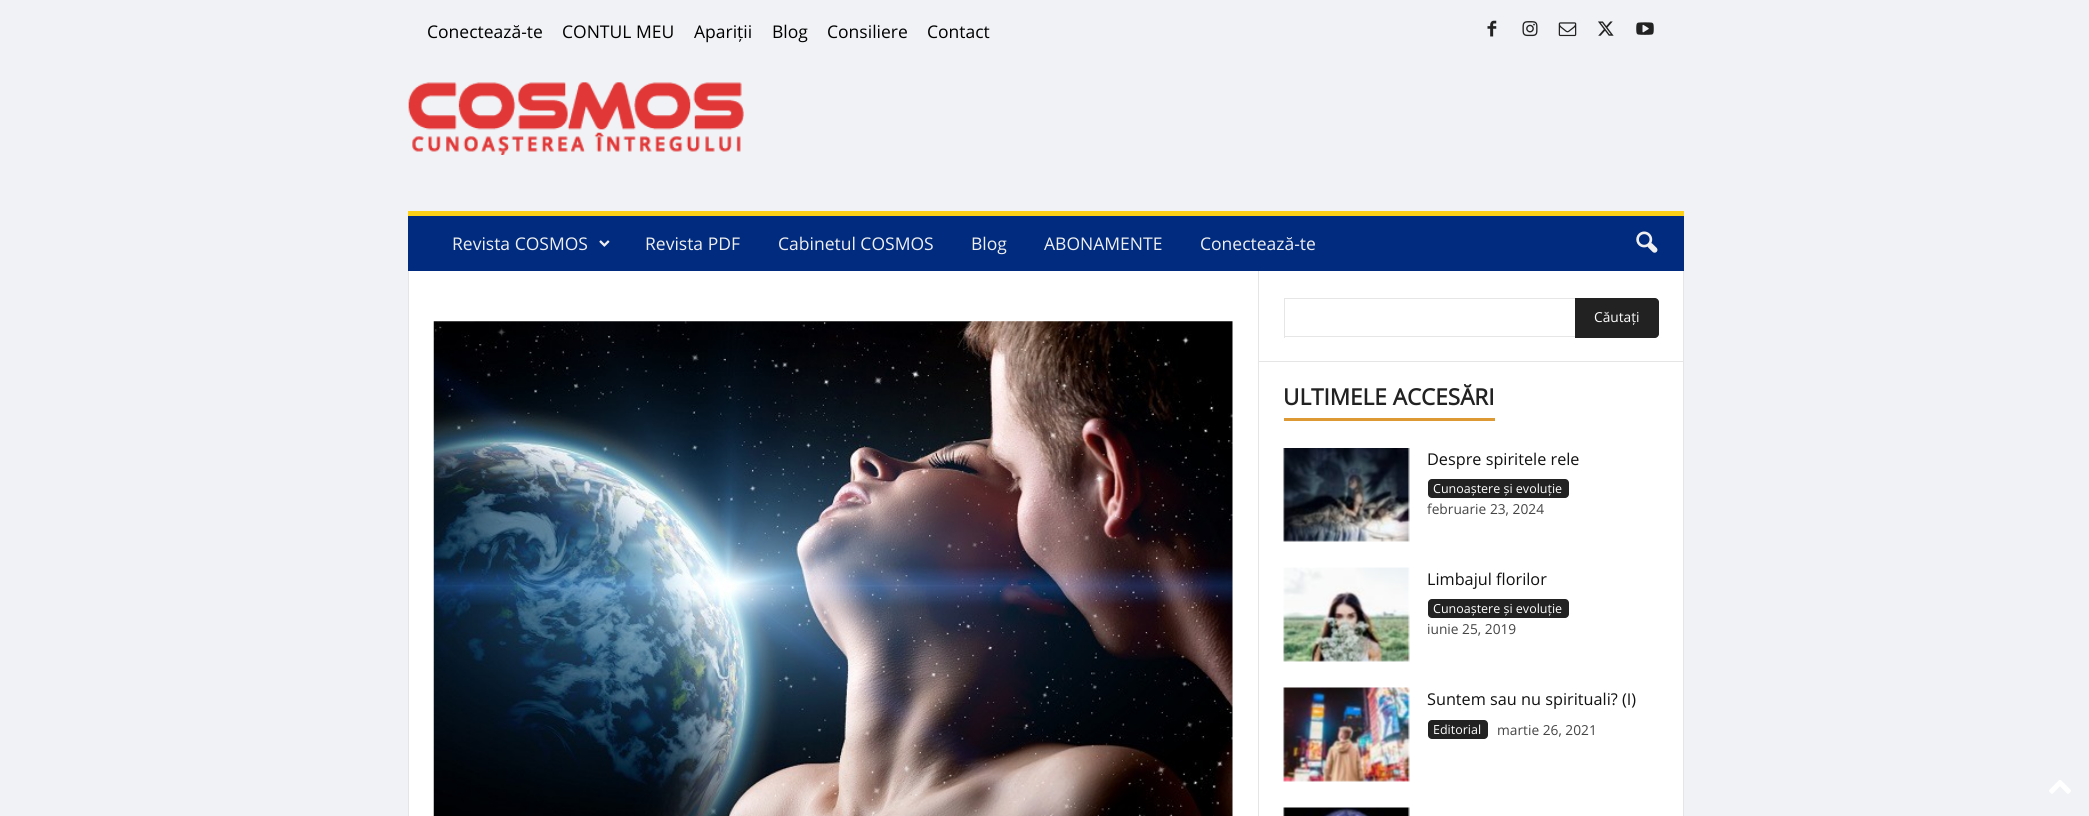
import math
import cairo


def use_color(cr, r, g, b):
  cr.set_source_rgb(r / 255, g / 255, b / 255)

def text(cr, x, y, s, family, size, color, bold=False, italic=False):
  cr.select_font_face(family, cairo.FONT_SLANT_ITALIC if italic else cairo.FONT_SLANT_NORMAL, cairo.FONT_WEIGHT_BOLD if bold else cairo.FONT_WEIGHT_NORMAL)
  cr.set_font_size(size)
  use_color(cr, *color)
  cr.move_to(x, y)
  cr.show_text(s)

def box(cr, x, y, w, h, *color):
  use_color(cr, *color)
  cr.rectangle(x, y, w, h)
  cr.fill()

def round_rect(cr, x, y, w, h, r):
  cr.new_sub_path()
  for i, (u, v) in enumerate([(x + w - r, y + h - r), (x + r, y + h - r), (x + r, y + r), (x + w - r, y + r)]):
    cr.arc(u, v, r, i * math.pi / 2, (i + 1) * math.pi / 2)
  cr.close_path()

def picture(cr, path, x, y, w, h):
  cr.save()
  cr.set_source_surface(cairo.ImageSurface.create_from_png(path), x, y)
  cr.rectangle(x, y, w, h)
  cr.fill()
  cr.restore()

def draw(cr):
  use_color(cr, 240, 242, 245)
  cr.paint()
  picture(cr, "img_01.png", 1487, 20, 10, 17)
  picture(cr, "img_02.png", 1522, 21, 16, 16)
  picture(cr, "img_03.png", 1558, 22, 19, 15)
  picture(cr, "img_04.png", 1598, 21, 16, 15)
  picture(cr, "img_05.png", 1636, 22, 18, 13)
  picture(cr, "img_06.png", 408, 82, 336, 73)
  box(cr, 408, 216, 1276, 55, 0, 43, 127)
  box(cr, 408, 211, 1276, 5, 252, 209, 22)
  picture(cr, "img_07.png", 599, 240, 11, 7)
  picture(cr, "img_08.png", 1636, 231, 22, 22)
  box(cr, 409, 271, 1274, 545, 255, 255, 255)
  box(cr, 408, 271, 1, 545, 229, 229, 229)
  picture(cr, "img_09.png", 433, 321, 800, 495)
  box(cr, 1258, 271, 1, 545, 229, 229, 229)
  box(cr, 1284, 298, 291, 1, 230, 230, 230)
  box(cr, 1284, 336, 291, 1, 230, 230, 230)
  box(cr, 1284, 298, 1, 40, 230, 230, 230)
  use_color(cr, 34, 34, 34)
  cr.new_path()
  cr.move_to(1575, 298)
  cr.line_to(1655, 298)
  cr.curve_to(1657, 298, 1659, 300, 1659, 302)
  cr.line_to(1659, 334)
  cr.curve_to(1659, 336, 1657, 338, 1655, 338)
  cr.line_to(1575, 338)
  cr.close_path()
  cr.fill()
  box(cr, 1259, 361, 424, 1, 229, 229, 229)
  box(cr, 1284, 418, 211, 3, 221, 153, 51)
  picture(cr, "img_10.png", 1283, 448, 127, 94)
  use_color(cr, 34, 34, 34)
  round_rect(cr, 1428, 479, 141, 19, 4)
  cr.fill()
  picture(cr, "img_11.png", 1283, 567, 127, 95)
  round_rect(cr, 1428, 599, 141, 19, 4)
  cr.fill()
  picture(cr, "img_12.png", 1283, 687, 127, 95)
  round_rect(cr, 1428, 720, 60, 19, 4)
  cr.fill()
  picture(cr, "img_13.png", 1283, 807, 127, 9)
  box(cr, 1683, 271, 1, 545, 229, 229, 229)
  picture(cr, "img_14.png", 2049, 780, 22, 14)
  text(cr, 427, 38, "Conectează-te", "Open Sans", 17.5, (0, 0, 0))
  text(cr, 562, 38, "CONTUL MEU", "Open Sans", 17.5, (0, 0, 0))
  text(cr, 694, 38, "Apariții", "Open Sans", 17.5, (0, 0, 0))
  text(cr, 772, 38, "Blog", "Open Sans", 17.5, (0, 0, 0))
  text(cr, 827, 38, "Consiliere", "Open Sans", 17.5, (0, 0, 0))
  text(cr, 927, 38, "Contact", "Open Sans", 17.5, (0, 0, 0))
  text(cr, 452, 250, "Revista COSMOS", "Open Sans", 17.5, (239, 239, 239))
  text(cr, 645, 250, "Revista PDF", "Open Sans", 17.5, (239, 239, 239))
  text(cr, 778, 250, "Cabinetul COSMOS", "Open Sans", 17.5, (239, 239, 239))
  text(cr, 971, 250, "Blog", "Open Sans", 17.5, (239, 239, 239))
  text(cr, 1044, 250, "ABONAMENTE", "Open Sans", 17.5, (239, 239, 239))
  text(cr, 1200, 250, "Conectează-te", "Open Sans", 17.5, (239, 239, 239))
  text(cr, 1594, 322, "Căutați", "Open Sans", 13.75, (255, 255, 255))
  text(cr, 1283, 405, "ULTIMELE ACCESĂRI", "Open Sans", 22.5, (34, 34, 34), bold=True)
  text(cr, 1427, 465, "Despre spiritele rele", "Open Sans", 16.25, (17, 17, 17))
  text(cr, 1433, 493, "Cunoaștere și evoluție", "Open Sans", 12.5, (255, 255, 255))
  text(cr, 1427, 514, "februarie 23, 2024", "Open Sans", 13.75, (68, 68, 68))
  text(cr, 1427, 585, "Limbajul florilor", "Open Sans", 16.25, (17, 17, 17))
  text(cr, 1433, 613, "Cunoaștere și evoluție", "Open Sans", 12.5, (255, 255, 255))
  text(cr, 1427, 634, "iunie 25, 2019", "Open Sans", 13.75, (68, 68, 68))
  text(cr, 1427, 705, "Suntem sau nu spirituali? (I)", "Open Sans", 16.25, (17, 17, 17))
  text(cr, 1433, 734, "Editorial", "Open Sans", 12.5, (255, 255, 255))
  text(cr, 1497, 735, "martie 26, 2021", "Open Sans", 13.75, (68, 68, 68))


surface = cairo.ImageSurface(cairo.FORMAT_RGB24, 2089, 816)
cr = cairo.Context(surface)
options = cairo.FontOptions()
options.set_hint_metrics(cairo.HINT_METRICS_OFF)
options.set_hint_style(cairo.HINT_STYLE_NONE)
cr.set_font_options(options)
cr.set_miter_limit(4)
draw(cr)
surface.write_to_png("out.png")
